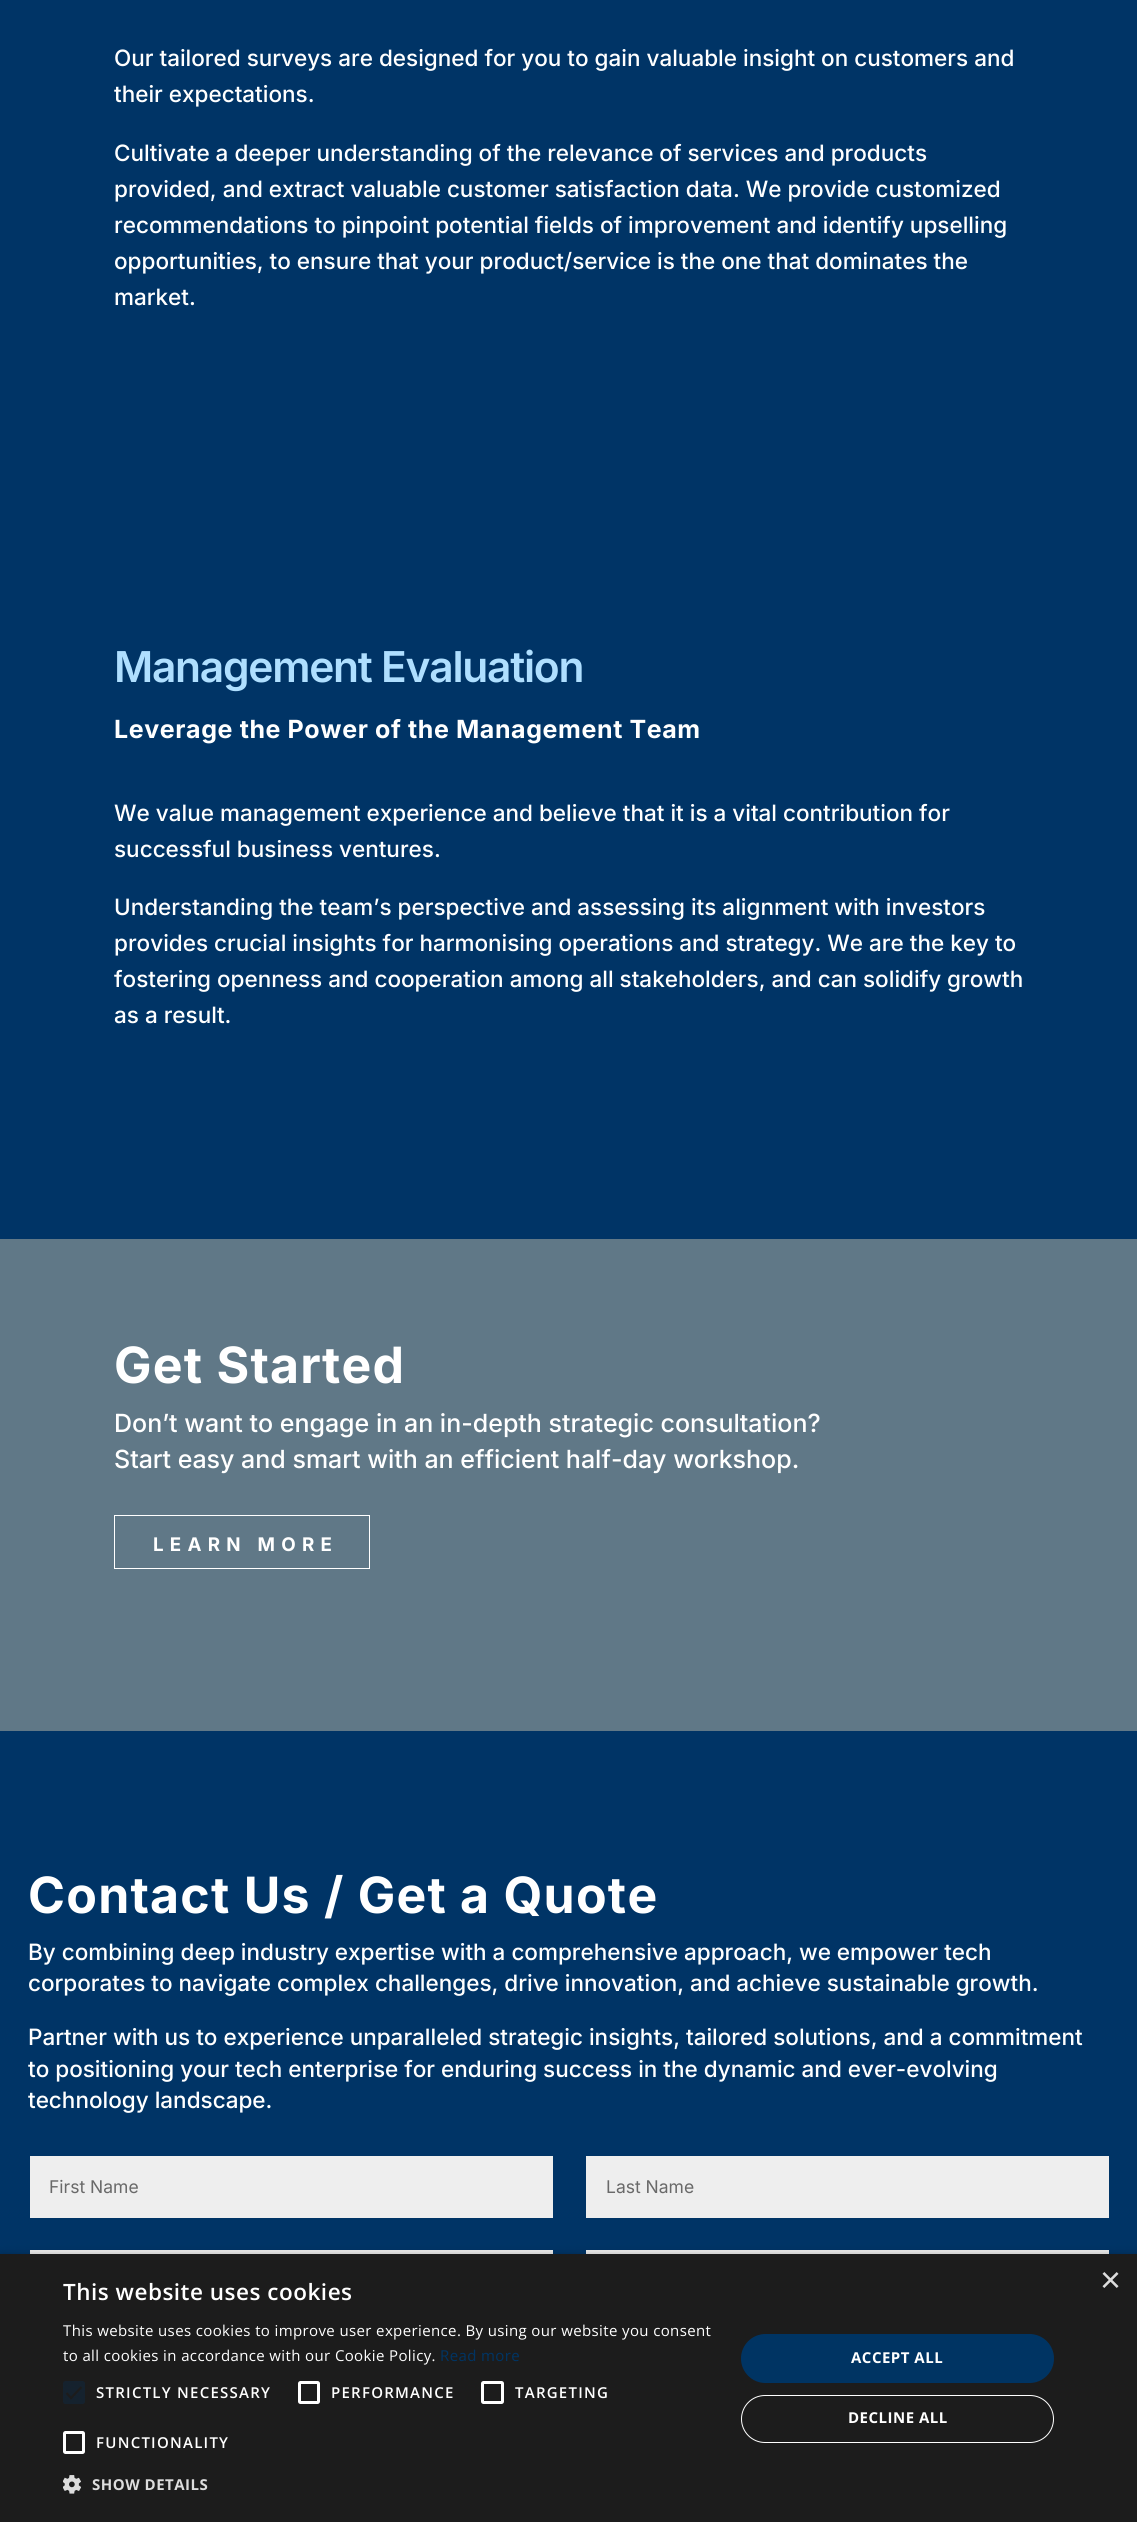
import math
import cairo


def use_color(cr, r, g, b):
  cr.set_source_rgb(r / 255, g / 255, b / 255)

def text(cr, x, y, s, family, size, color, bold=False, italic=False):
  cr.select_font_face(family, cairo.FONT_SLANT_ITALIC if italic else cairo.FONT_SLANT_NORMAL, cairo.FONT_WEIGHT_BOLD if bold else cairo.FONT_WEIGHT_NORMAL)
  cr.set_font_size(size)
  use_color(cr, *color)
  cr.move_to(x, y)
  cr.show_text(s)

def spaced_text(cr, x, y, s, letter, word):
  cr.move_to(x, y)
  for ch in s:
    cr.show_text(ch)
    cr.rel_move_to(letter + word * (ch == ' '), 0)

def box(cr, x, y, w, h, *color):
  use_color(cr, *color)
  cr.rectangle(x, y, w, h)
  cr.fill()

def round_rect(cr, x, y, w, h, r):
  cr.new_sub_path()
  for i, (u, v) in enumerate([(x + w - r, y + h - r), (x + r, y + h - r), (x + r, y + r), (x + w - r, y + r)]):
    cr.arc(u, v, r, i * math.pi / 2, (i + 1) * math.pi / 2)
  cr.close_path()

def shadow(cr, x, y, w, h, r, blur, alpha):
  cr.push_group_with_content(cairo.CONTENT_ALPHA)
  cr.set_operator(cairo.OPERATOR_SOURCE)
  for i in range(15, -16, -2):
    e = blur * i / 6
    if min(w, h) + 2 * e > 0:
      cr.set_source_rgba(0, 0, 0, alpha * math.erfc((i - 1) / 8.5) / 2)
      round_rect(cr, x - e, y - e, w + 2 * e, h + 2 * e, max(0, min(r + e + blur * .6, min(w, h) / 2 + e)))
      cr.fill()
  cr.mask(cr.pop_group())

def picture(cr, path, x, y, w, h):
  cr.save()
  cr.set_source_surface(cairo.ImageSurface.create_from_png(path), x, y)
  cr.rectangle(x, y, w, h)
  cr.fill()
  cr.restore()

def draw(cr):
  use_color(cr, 0, 52, 102)
  cr.paint()
  box(cr, 0, 1239, 1137, 492, 96, 120, 135)
  cr.rectangle(114.5, 1515.5, 255, 53)
  use_color(cr, 255, 255, 255)
  cr.set_line_width(1)
  cr.stroke()
  box(cr, 30, 2156, 523, 62, 238, 238, 238)
  box(cr, 586, 2156, 523, 62, 238, 238, 238)
  box(cr, 30, 2250, 523, 4, 238, 238, 238)
  box(cr, 586, 2250, 523, 4, 238, 238, 238)
  use_color(cr, 0, 0, 0)
  shadow(cr, 1, 2256, 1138, 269, 0, 5, 0.35)
  box(cr, 0, 2254, 1137, 268, 28, 28, 28)
  use_color(cr, 21, 34, 46)
  round_rect(cr, 63, 2381, 22, 23, 2.5)
  cr.fill()
  cr.new_path()
  cr.move_to(66.5, 2393)
  cr.line_to(71, 2398)
  cr.line_to(81.5, 2387)
  use_color(cr, 28, 28, 28)
  cr.set_line_width(2.3)
  cr.stroke()
  round_rect(cr, 299.5, 2382.5, 19, 20, 1)
  use_color(cr, 255, 255, 255)
  cr.set_line_width(3)
  cr.stroke()
  round_rect(cr, 482.5, 2382.5, 20, 20, 1)
  cr.stroke()
  round_rect(cr, 64.5, 2432.5, 19, 20, 1)
  cr.stroke()
  picture(cr, "img_01.png", 63, 2475, 18, 19)
  use_color(cr, 0, 52, 99)
  round_rect(cr, 741, 2334, 313, 49, 24.5)
  cr.fill()
  round_rect(cr, 741.5, 2395.5, 312, 47, 23.5)
  use_color(cr, 255, 255, 255)
  cr.set_line_width(1)
  cr.stroke()
  text(cr, 114, 66, "Our tailored surveys are designed for you to gain valuable insight on customers and", "Inter Medium", 22.5, (255, 255, 255))
  text(cr, 114, 102, "their expectations.", "Inter Medium", 22.5, (255, 255, 255))
  text(cr, 114, 161, "Cultivate a deeper understanding of the relevance of services and products", "Inter Medium", 22.5, (255, 255, 255))
  text(cr, 114, 197, "provided, and extract valuable customer satisfaction data. We provide customized", "Inter Medium", 22.5, (255, 255, 255))
  text(cr, 114, 233, "recommendations to pinpoint potential fields of improvement and identify upselling", "Inter Medium", 22.5, (255, 255, 255))
  text(cr, 114, 269, "opportunities, to ensure that your product/service is the one that dominates the", "Inter Medium", 22.5, (255, 255, 255))
  text(cr, 114, 305, "market.", "Inter Medium", 22.5, (255, 255, 255))
  cr.select_font_face("Inter SemiBold")
  cr.set_font_size(42.5)
  use_color(cr, 175, 223, 255)
  spaced_text(cr, 114, 682, "Management Evaluation", -1.25, 0)
  cr.select_font_face("Inter", cairo.FONT_SLANT_NORMAL, cairo.FONT_WEIGHT_BOLD)
  cr.set_font_size(25)
  use_color(cr, 255, 255, 255)
  spaced_text(cr, 114, 738, "Leverage the Power of the Management Team", 0.6, 0)
  text(cr, 114, 821, "We value management experience and believe that it is a vital contribution for", "Inter Medium", 22.5, (255, 255, 255))
  text(cr, 114, 857, "successful business ventures.", "Inter Medium", 22.5, (255, 255, 255))
  text(cr, 114, 915, "Understanding the team’s perspective and assessing its alignment with investors", "Inter Medium", 22.5, (255, 255, 255))
  text(cr, 114, 951, "provides crucial insights for harmonising operations and strategy. We are the key to", "Inter Medium", 22.5, (255, 255, 255))
  text(cr, 114, 987, "fostering openness and cooperation among all stakeholders, and can solidify growth", "Inter Medium", 22.5, (255, 255, 255))
  text(cr, 114, 1023, "as a result.", "Inter Medium", 22.5, (255, 255, 255))
  cr.select_font_face("Inter", cairo.FONT_SLANT_NORMAL, cairo.FONT_WEIGHT_BOLD)
  cr.set_font_size(50)
  spaced_text(cr, 114, 1383, "Get Started", 1.25, 0)
  text(cr, 114, 1432, "Don’t want to engage in an in-depth strategic consultation?", "Inter Medium", 25, (255, 255, 255))
  text(cr, 114, 1468, "Start easy and smart with an efficient half-day workshop.", "Inter Medium", 25, (255, 255, 255))
  cr.select_font_face("Inter", cairo.FONT_SLANT_NORMAL, cairo.FONT_WEIGHT_BOLD)
  cr.set_font_size(18.75)
  spaced_text(cr, 153, 1551, "LEARN MORE", 6.25, 0)
  cr.set_font_size(50)
  spaced_text(cr, 28, 1913, "Contact Us / Get a Quote", 1.25, 0)
  text(cr, 28, 1960, "By combining deep industry expertise with a comprehensive approach, we empower tech", "Inter Medium", 22.5, (255, 255, 255))
  text(cr, 28, 1991, "corporates to navigate complex challenges, drive innovation, and achieve sustainable growth.", "Inter Medium", 22.5, (255, 255, 255))
  text(cr, 28, 2045, "Partner with us to experience unparalleled strategic insights, tailored solutions, and a commitment", "Inter Medium", 22.5, (255, 255, 255))
  text(cr, 28, 2077, "to positioning your tech enterprise for enduring success in the dynamic and ever-evolving", "Inter Medium", 22.5, (255, 255, 255))
  text(cr, 28, 2108, "technology landscape.", "Inter Medium", 22.5, (255, 255, 255))
  text(cr, 49, 2193, "First Name", "Inter", 17.5, (105, 105, 105))
  text(cr, 606, 2193, "Last Name", "Inter", 17.5, (105, 105, 105))
  text(cr, 1100, 2292, "×", "Liberation Sans", 36, (221, 221, 221))
  cr.select_font_face("Open Sans SemiBold")
  cr.set_font_size(22.5)
  use_color(cr, 255, 255, 255)
  spaced_text(cr, 63, 2300, "This website uses cookies", 0.5, 0)
  cr.select_font_face("Open Sans")
  cr.set_font_size(15)
  spaced_text(cr, 63, 2336, "This website uses cookies to improve user experience. By using our website you consent", 0.38, 0)
  spaced_text(cr, 63, 2361, "to all cookies in accordance with our Cookie Policy.", 0.38, 0)
  use_color(cr, 0, 52, 99)
  spaced_text(cr, 440, 2361, "Read more", 0.38, 0)
  cr.select_font_face("Open Sans SemiBold")
  use_color(cr, 255, 255, 255)
  spaced_text(cr, 96, 2398, "STRICTLY NECESSARY", 1.25, 0)
  spaced_text(cr, 331, 2398, "PERFORMANCE", 1.25, 0)
  spaced_text(cr, 515, 2398, "TARGETING", 1.25, 0)
  spaced_text(cr, 96, 2448, "FUNCTIONALITY", 1.25, 0)
  cr.select_font_face("Open Sans", cairo.FONT_SLANT_NORMAL, cairo.FONT_WEIGHT_BOLD)
  use_color(cr, 221, 221, 221)
  spaced_text(cr, 92, 2490, "SHOW DETAILS", 0.5, 0)
  use_color(cr, 255, 255, 255)
  spaced_text(cr, 851, 2363, "ACCEPT ALL", 0.5, 0)
  spaced_text(cr, 848, 2423, "DECLINE ALL", 0.5, 0)


surface = cairo.ImageSurface(cairo.FORMAT_RGB24, 1137, 2522)
cr = cairo.Context(surface)
options = cairo.FontOptions()
options.set_hint_metrics(cairo.HINT_METRICS_OFF)
options.set_hint_style(cairo.HINT_STYLE_NONE)
cr.set_font_options(options)
cr.set_miter_limit(4)
draw(cr)
surface.write_to_png("out.png")
